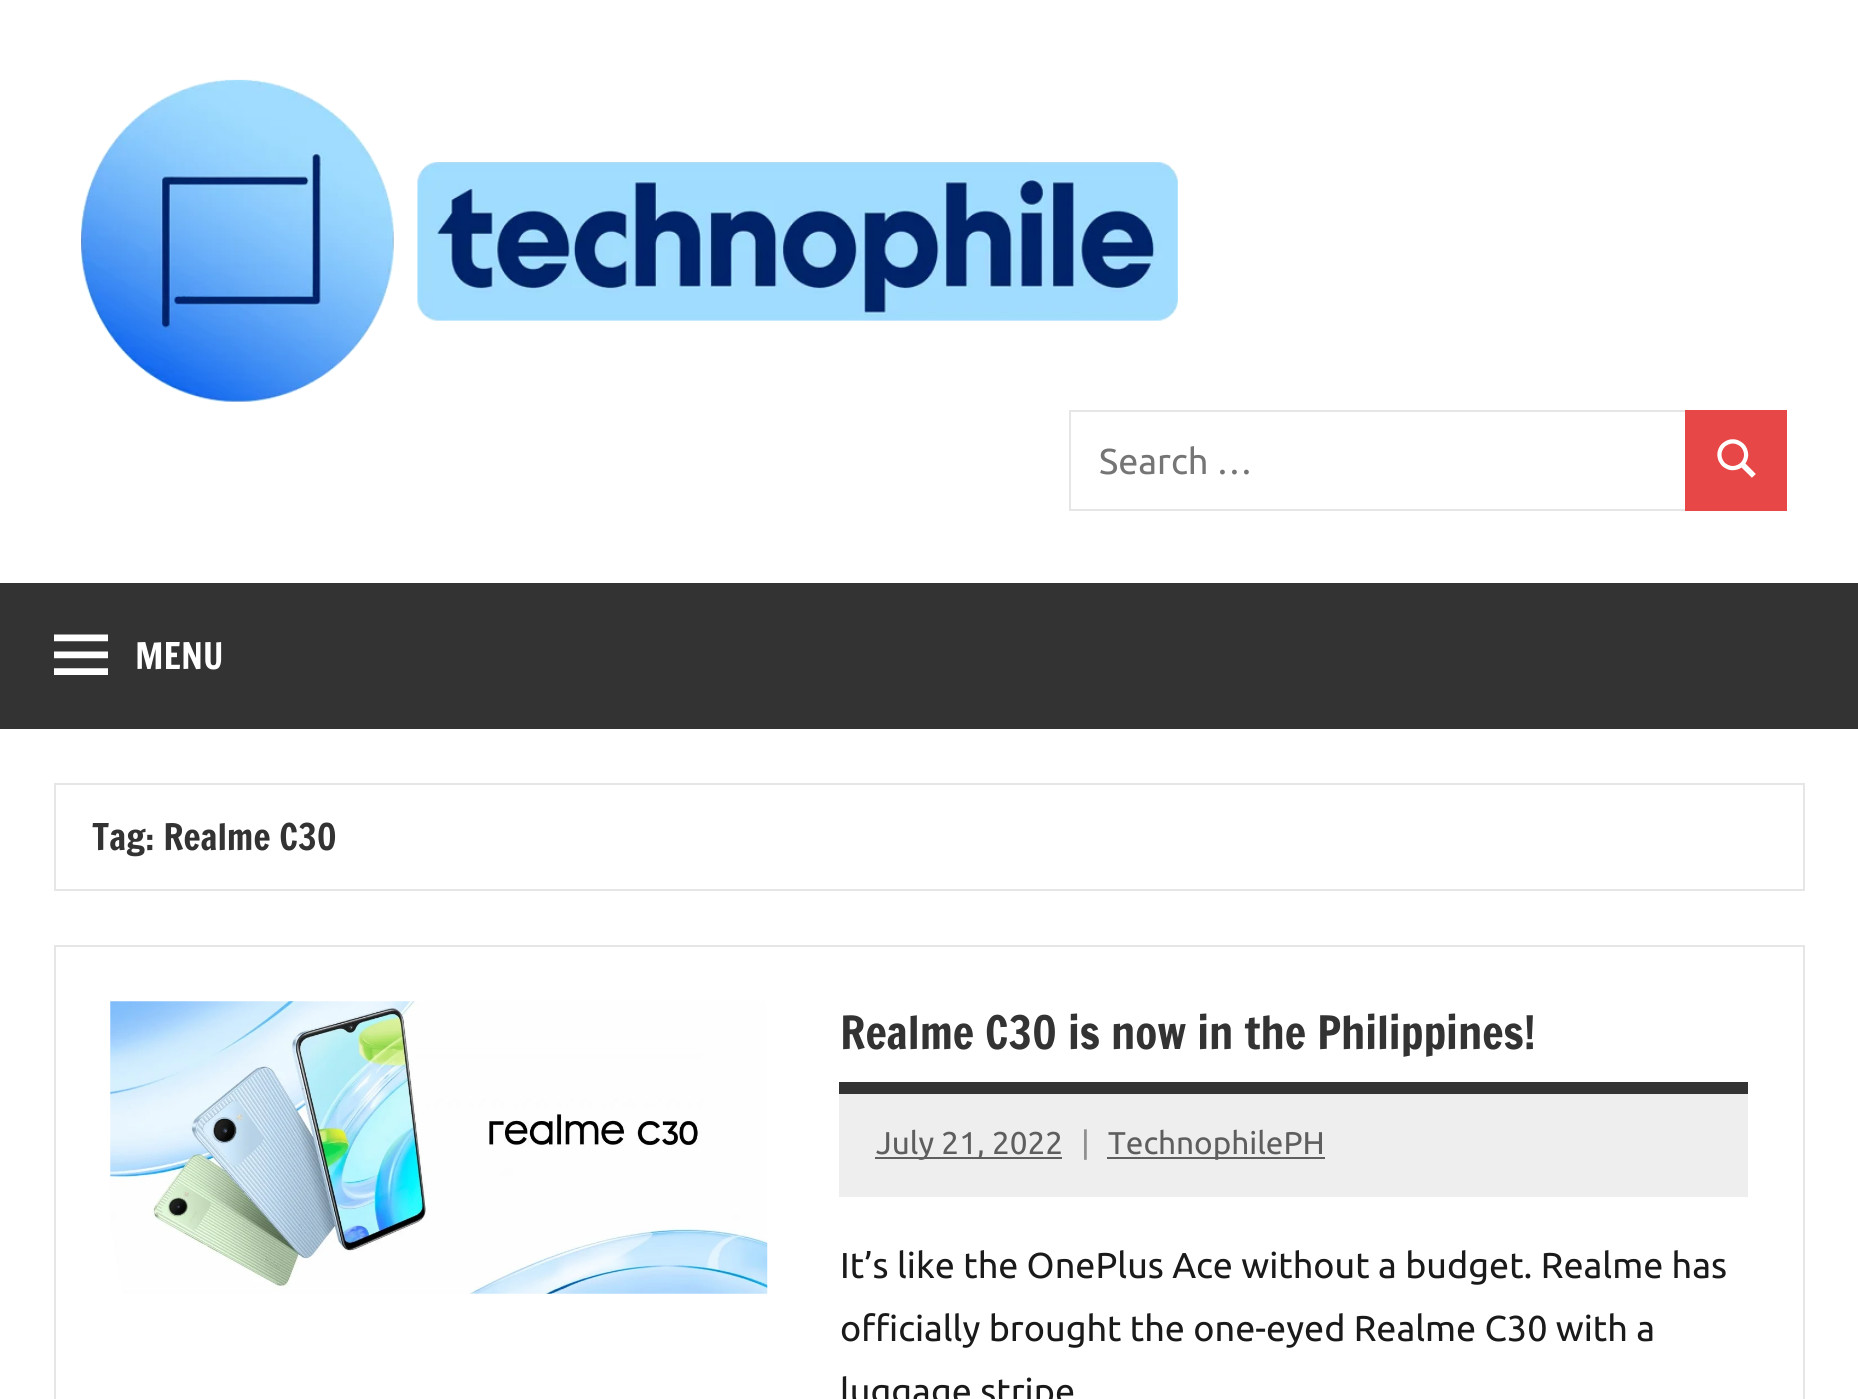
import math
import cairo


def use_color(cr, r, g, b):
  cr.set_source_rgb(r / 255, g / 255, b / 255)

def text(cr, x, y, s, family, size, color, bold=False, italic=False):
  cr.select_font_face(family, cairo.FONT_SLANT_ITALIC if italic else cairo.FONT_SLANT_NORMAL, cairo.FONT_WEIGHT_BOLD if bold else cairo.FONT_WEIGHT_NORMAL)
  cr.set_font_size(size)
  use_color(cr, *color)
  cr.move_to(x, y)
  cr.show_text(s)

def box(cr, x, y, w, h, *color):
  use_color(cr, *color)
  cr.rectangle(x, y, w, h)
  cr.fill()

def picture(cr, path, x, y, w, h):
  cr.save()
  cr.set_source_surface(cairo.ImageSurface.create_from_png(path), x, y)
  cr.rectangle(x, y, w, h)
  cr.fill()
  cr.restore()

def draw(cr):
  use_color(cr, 255, 255, 255)
  cr.paint()
  picture(cr, "img_01.png", 81, 79, 1097, 323)
  cr.rectangle(1070, 411, 617, 99)
  use_color(cr, 230, 230, 230)
  cr.stroke()
  box(cr, 1685, 410, 102, 101, 232, 71, 71)
  picture(cr, "img_02.png", 1717, 439, 39, 39)
  box(cr, 0, 583, 1858, 146, 51, 51, 51)
  picture(cr, "img_03.png", 54, 634, 54, 41)
  cr.rectangle(55, 784, 1749, 106)
  use_color(cr, 230, 230, 230)
  cr.stroke()
  cr.rectangle(55, 946, 1749, 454)
  cr.stroke()
  picture(cr, "img_04.png", 110, 1001, 658, 293)
  box(cr, 839, 1082, 909, 12, 51, 51, 51)
  box(cr, 839, 1094, 909, 103, 238, 238, 238)
  box(cr, 875, 1157, 187, 2, 95, 95, 95)
  box(cr, 1107, 1157, 218, 2, 95, 95, 95)
  text(cr, 1099, 474, "Search …", "Ubuntu", 36, (117, 117, 117))
  text(cr, 135, 669, "MENU", "Francois One", 36, (255, 255, 255))
  text(cr, 92, 850, "Tag: Realme C30", "Francois One", 36, (51, 51, 51))
  text(cr, 840, 1049, "Realme C30 is now in the Philippines!", "Francois One", 45, (51, 51, 51))
  text(cr, 876, 1154, "July 21, 2022", "Ubuntu", 31.5, (94, 94, 94))
  text(cr, 1081, 1154, "|", "Ubuntu", 31.5, (143, 143, 143))
  text(cr, 1108, 1154, "TechnophilePH", "Ubuntu", 31.5, (94, 94, 94))
  text(cr, 840, 1278, "It’s like the OnePlus Ace without a budget. Realme has", "Ubuntu", 36, (26, 26, 26))
  text(cr, 840, 1341, "officially brought the one-eyed Realme C30 with a", "Ubuntu", 36, (26, 26, 26))
  text(cr, 840, 1404, "luggage stripe", "Ubuntu", 36, (26, 26, 26))


surface = cairo.ImageSurface(cairo.FORMAT_RGB24, 1858, 1399)
cr = cairo.Context(surface)
options = cairo.FontOptions()
options.set_hint_metrics(cairo.HINT_METRICS_OFF)
options.set_hint_style(cairo.HINT_STYLE_NONE)
cr.set_font_options(options)
cr.set_miter_limit(4)
draw(cr)
surface.write_to_png("out.png")
